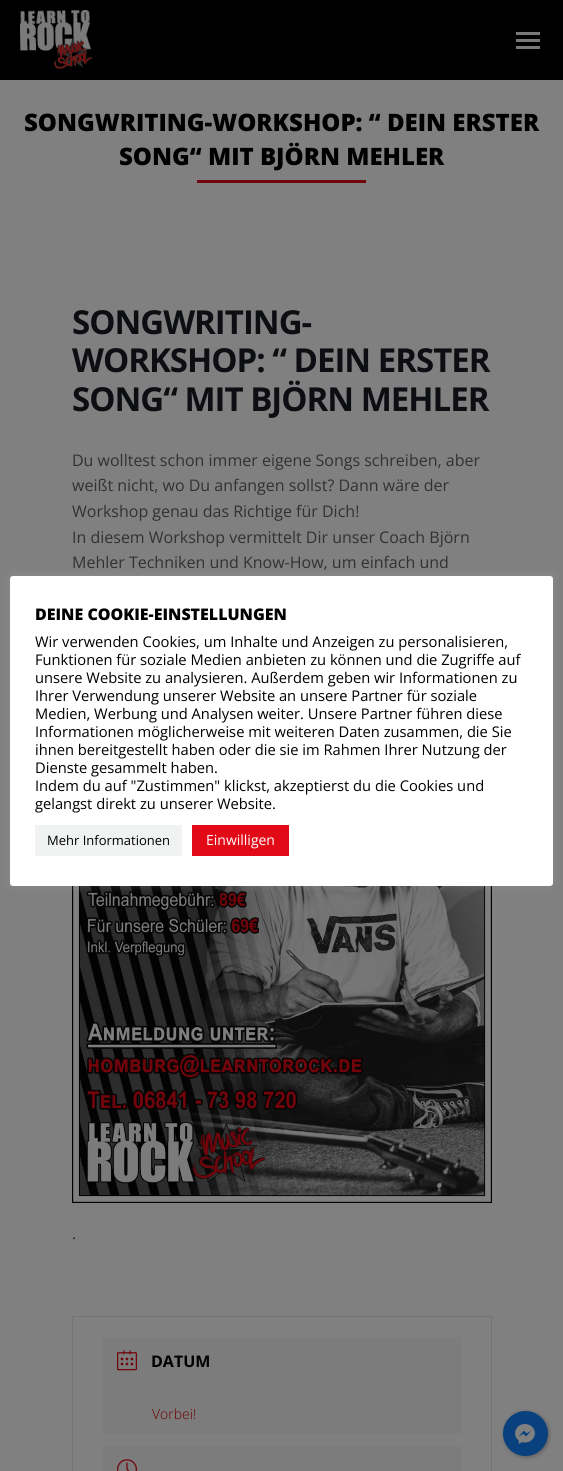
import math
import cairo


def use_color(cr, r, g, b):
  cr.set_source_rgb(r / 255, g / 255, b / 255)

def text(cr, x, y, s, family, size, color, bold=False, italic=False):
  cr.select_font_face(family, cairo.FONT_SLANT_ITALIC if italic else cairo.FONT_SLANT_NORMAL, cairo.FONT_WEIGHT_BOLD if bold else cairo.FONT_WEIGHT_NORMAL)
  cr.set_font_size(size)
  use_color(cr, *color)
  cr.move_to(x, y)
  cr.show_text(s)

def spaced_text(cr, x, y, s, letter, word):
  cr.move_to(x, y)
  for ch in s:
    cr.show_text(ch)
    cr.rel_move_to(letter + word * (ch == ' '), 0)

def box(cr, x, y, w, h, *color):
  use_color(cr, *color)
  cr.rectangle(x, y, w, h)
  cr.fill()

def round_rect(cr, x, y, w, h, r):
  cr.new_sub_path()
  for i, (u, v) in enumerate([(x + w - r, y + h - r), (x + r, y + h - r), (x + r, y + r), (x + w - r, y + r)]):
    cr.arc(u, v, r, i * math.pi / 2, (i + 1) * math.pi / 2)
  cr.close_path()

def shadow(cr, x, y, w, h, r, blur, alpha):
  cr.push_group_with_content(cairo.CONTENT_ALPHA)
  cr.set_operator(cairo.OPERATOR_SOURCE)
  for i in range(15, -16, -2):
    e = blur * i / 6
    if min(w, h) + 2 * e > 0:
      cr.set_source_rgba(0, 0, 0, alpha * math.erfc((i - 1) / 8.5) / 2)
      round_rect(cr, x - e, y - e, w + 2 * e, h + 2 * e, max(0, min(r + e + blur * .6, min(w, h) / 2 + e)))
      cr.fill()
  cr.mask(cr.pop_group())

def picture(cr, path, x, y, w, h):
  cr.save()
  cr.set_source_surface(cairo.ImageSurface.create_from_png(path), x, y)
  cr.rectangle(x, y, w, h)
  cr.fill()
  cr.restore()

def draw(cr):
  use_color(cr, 128, 128, 128)
  cr.paint()
  box(cr, 0, 0, 563, 80, 0, 0, 0)
  picture(cr, "img_01.png", 20, 10, 73, 59)
  box(cr, 516, 32, 24, 3, 121, 121, 121)
  box(cr, 516, 39, 24, 3, 121, 121, 121)
  box(cr, 516, 46, 24, 3, 121, 121, 121)
  box(cr, 197, 180, 169, 3, 113, 5, 12)
  picture(cr, "img_02.png", 72, 886, 420, 317)
  cr.rectangle(72.5, 1316.5, 419, 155)
  use_color(cr, 115, 115, 115)
  cr.set_line_width(1)
  cr.stroke()
  box(cr, 103, 1337, 358, 97, 124, 124, 124)
  picture(cr, "img_03.png", 117, 1350, 20, 21)
  box(cr, 103, 1446, 358, 25, 124, 124, 124)
  picture(cr, "img_04.png", 117, 1459, 20, 12)
  use_color(cr, 172, 171, 171)
  shadow(cr, 10, 575, 543, 310, 3, 5, 0.3)
  use_color(cr, 255, 255, 255)
  round_rect(cr, 10, 576, 543, 310, 3)
  cr.fill()
  box(cr, 35, 825, 147, 31, 241, 242, 242)
  box(cr, 192, 825, 97, 31, 226, 10, 23)
  use_color(cr, 0, 0, 0)
  shadow(cr, 504, 1412, 45, 45, 22.5, 2, 0.3)
  use_color(cr, 9, 65, 126)
  cr.arc(525.5, 1433.5, 22.5, 0, 2 * math.pi)
  cr.fill()
  picture(cr, "img_05.png", 515, 1424, 20, 20)
  text(cr, 24, 131, "SONGWRITING-WORKSHOP: “ DEIN ERSTER", "Open Sans ExtraBold", 24, (0, 0, 0))
  text(cr, 119, 165, "SONG“ MIT BJÖRN MEHLER", "Open Sans ExtraBold", 24, (0, 0, 0))
  cr.select_font_face("Open Sans", cairo.FONT_SLANT_NORMAL, cairo.FONT_WEIGHT_BOLD)
  cr.set_font_size(33)
  use_color(cr, 12, 14, 18)
  spaced_text(cr, 72, 334, "SONGWRITING-", -1, 0)
  spaced_text(cr, 72, 372, "WORKSHOP: “ DEIN ERSTER", -1, 0)
  spaced_text(cr, 72, 411, "SONG“ MIT BJÖRN MEHLER", -1, 0)
  text(cr, 72, 466, "Du wolltest schon immer eigene Songs schreiben, aber", "Open Sans", 16, (49, 49, 49))
  text(cr, 72, 491, "weißt nicht, wo Du anfangen sollst? Dann wäre der", "Open Sans", 16, (49, 49, 49))
  text(cr, 72, 517, "Workshop genau das Richtige für Dich!", "Open Sans", 16, (49, 49, 49))
  text(cr, 72, 543, "In diesem Workshop vermittelt Dir unser Coach Björn", "Open Sans", 16, (49, 49, 49))
  text(cr, 72, 568, "Mehler Techniken und Know-How, um einfach und", "Open Sans", 16, (49, 49, 49))
  text(cr, 72, 1239, ".", "Open Sans", 16, (49, 49, 49))
  text(cr, 151, 1367, "DATUM", "Open Sans", 16, (0, 0, 0), bold=True)
  text(cr, 152, 1419, "Vorbei!", "Open Sans Light", 14, (108, 0, 6))
  text(cr, 35, 620, "DEINE COOKIE-EINSTELLUNGEN", "Open Sans ExtraBold", 16, (0, 0, 0))
  text(cr, 35, 647, "Wir verwenden Cookies, um Inhalte und Anzeigen zu personalisieren,", "Open Sans", 14.7, (0, 0, 0))
  text(cr, 35, 665, "Funktionen für soziale Medien anbieten zu können und die Zugriffe auf", "Open Sans", 14.7, (0, 0, 0))
  text(cr, 35, 683, "unsere Website zu analysieren. Außerdem geben wir Informationen zu", "Open Sans", 14.7, (0, 0, 0))
  text(cr, 35, 701, "Ihrer Verwendung unserer Website an unsere Partner für soziale", "Open Sans", 14.7, (0, 0, 0))
  text(cr, 35, 719, "Medien, Werbung und Analysen weiter. Unsere Partner führen diese", "Open Sans", 14.7, (0, 0, 0))
  text(cr, 35, 737, "Informationen möglicherweise mit weiteren Daten zusammen, die Sie", "Open Sans", 14.7, (0, 0, 0))
  text(cr, 35, 755, "ihnen bereitgestellt haben oder die sie im Rahmen Ihrer Nutzung der", "Open Sans", 14.7, (0, 0, 0))
  text(cr, 35, 773, "Dienste gesammelt haben.", "Open Sans", 14.7, (0, 0, 0))
  text(cr, 35, 791, "Indem du auf \"Zustimmen\" klickst, akzeptierst du die Cookies und", "Open Sans", 14.7, (0, 0, 0))
  text(cr, 35, 809, "gelangst direkt zu unserer Website.", "Open Sans", 14.7, (0, 0, 0))
  text(cr, 47, 845, "Mehr Informationen", "Open Sans", 13, (0, 0, 0))
  text(cr, 206, 845, "Einwilligen", "Open Sans", 14, (255, 255, 255))


surface = cairo.ImageSurface(cairo.FORMAT_RGB24, 563, 1471)
cr = cairo.Context(surface)
options = cairo.FontOptions()
options.set_hint_metrics(cairo.HINT_METRICS_OFF)
options.set_hint_style(cairo.HINT_STYLE_NONE)
cr.set_font_options(options)
cr.set_miter_limit(4)
draw(cr)
surface.write_to_png("out.png")
